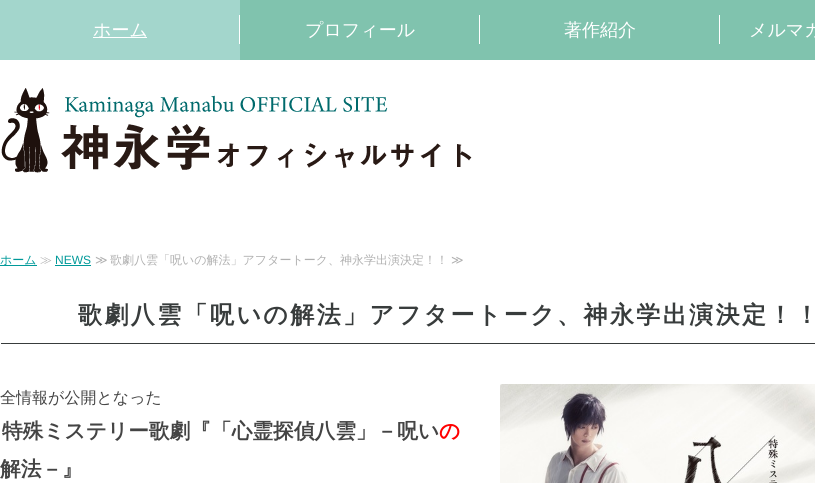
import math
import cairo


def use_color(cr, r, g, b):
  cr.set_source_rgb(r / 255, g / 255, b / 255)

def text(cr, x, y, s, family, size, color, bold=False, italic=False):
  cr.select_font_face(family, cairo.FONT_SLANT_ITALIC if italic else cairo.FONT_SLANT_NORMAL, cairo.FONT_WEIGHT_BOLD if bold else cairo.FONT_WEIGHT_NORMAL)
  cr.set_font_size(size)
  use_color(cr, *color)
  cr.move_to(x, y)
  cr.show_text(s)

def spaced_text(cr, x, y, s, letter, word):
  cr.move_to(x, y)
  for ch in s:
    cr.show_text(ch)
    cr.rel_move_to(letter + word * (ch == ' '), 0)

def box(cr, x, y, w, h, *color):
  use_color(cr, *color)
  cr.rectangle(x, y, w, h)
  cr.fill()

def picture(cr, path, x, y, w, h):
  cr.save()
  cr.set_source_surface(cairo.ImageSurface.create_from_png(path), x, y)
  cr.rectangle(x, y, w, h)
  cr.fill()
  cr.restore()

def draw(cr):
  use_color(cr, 255, 255, 255)
  cr.paint()
  box(cr, 240, 0, 575, 60, 128, 195, 174)
  box(cr, 0, 0, 240, 60, 163, 214, 204)
  box(cr, 93, 37, 54, 1, 255, 255, 255)
  box(cr, 239, 15, 1, 29, 255, 255, 255)
  box(cr, 479, 15, 1, 29, 255, 255, 255)
  box(cr, 719, 15, 1, 29, 255, 255, 255)
  picture(cr, "img_01.png", 1, 88, 471, 85)
  box(cr, 0, 265, 37, 1, 0, 153, 153)
  box(cr, 55, 265, 36, 1, 0, 153, 153)
  box(cr, 1, 343, 814, 1, 56, 60, 60)
  picture(cr, "img_02.png", 500, 384, 315, 99)
  text(cr, 93, 36, "ホーム", "WenQuanYi Zen Hei Medium", 18, (255, 255, 255))
  text(cr, 305, 36, "プロフィール", "WenQuanYi Zen Hei Medium", 18, (255, 255, 255))
  text(cr, 564, 36, "著作紹介", "WenQuanYi Zen Hei Medium", 18, (255, 255, 255))
  text(cr, 749, 36, "メルマガ", "WenQuanYi Zen Hei Medium", 18, (255, 255, 255))
  text(cr, 0, 264, "ホーム", "WenQuanYi Zen Hei Medium", 12, (0, 153, 153))
  text(cr, 40, 264, "≫", "WenQuanYi Zen Hei Medium", 12, (176, 176, 176))
  text(cr, 55, 264, "NEWS", "Liberation Sans", 12, (0, 153, 153))
  text(cr, 95, 264, "≫", "DejaVu Sans", 12, (176, 176, 176))
  text(cr, 110, 264, "歌劇八雲「呪いの解法」アフタートーク、神永学出演決定！！", "WenQuanYi Zen Hei Medium", 12, (176, 176, 176))
  text(cr, 451, 264, "≫", "DejaVu Sans", 12, (176, 176, 176))
  cr.select_font_face("WenQuanYi Zen Hei", cairo.FONT_SLANT_NORMAL, cairo.FONT_WEIGHT_BOLD)
  cr.set_font_size(24)
  use_color(cr, 56, 60, 60)
  spaced_text(cr, 78, 323, "歌劇八雲「呪いの解法」アフタートーク、神永学出演決定！！", 2.4, 0)
  text(cr, 0, 403, "全情報が公開となった", "WenQuanYi Zen Hei Medium", 16, (68, 68, 68))
  text(cr, 2, 438, "特殊ミステリー歌劇『「心霊探偵八雲」－呪い", "WenQuanYi Zen Hei", 20.7, (68, 68, 68), bold=True)
  text(cr, 439, 438, "の", "WenQuanYi Zen Hei", 20.7, (255, 0, 0), bold=True)
  text(cr, 0, 476, "解法－』", "WenQuanYi Zen Hei", 20.7, (68, 68, 68), bold=True)


surface = cairo.ImageSurface(cairo.FORMAT_RGB24, 815, 483)
cr = cairo.Context(surface)
options = cairo.FontOptions()
options.set_hint_metrics(cairo.HINT_METRICS_OFF)
options.set_hint_style(cairo.HINT_STYLE_NONE)
cr.set_font_options(options)
cr.set_miter_limit(4)
draw(cr)
surface.write_to_png("out.png")
